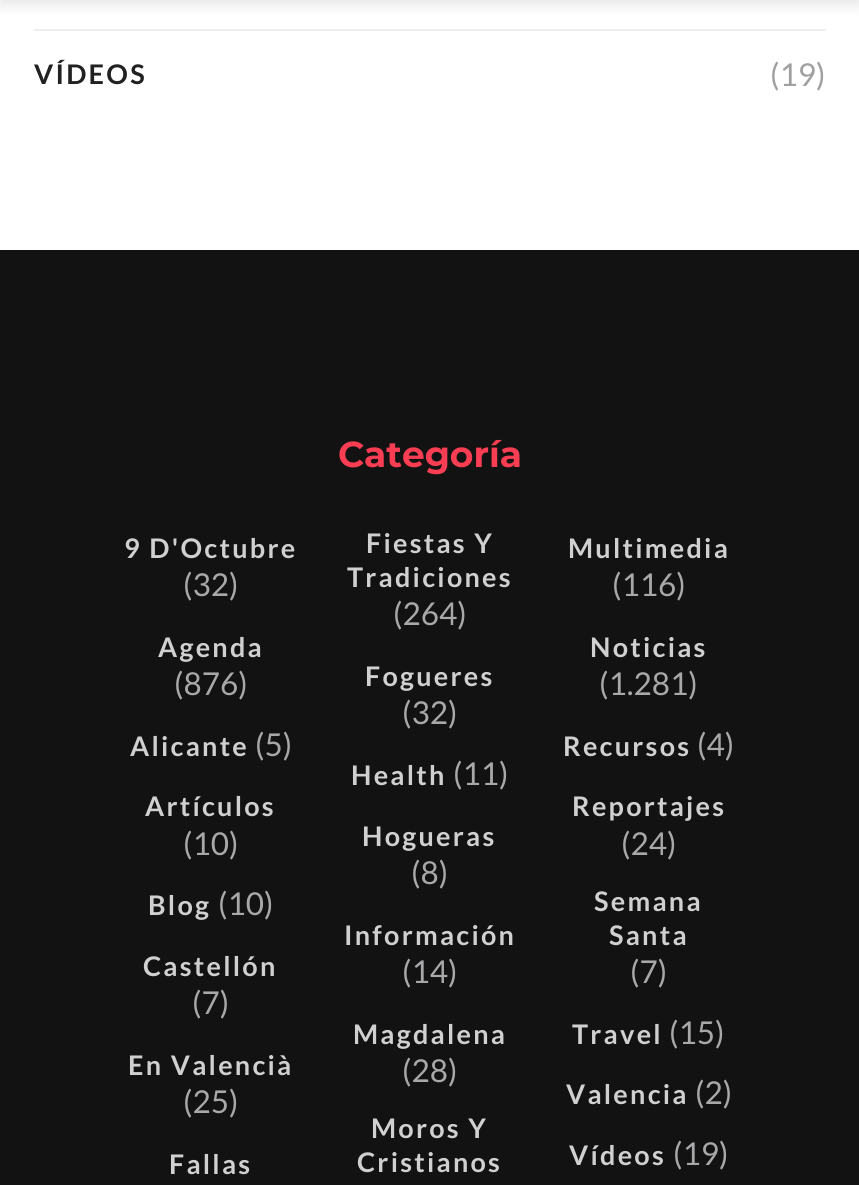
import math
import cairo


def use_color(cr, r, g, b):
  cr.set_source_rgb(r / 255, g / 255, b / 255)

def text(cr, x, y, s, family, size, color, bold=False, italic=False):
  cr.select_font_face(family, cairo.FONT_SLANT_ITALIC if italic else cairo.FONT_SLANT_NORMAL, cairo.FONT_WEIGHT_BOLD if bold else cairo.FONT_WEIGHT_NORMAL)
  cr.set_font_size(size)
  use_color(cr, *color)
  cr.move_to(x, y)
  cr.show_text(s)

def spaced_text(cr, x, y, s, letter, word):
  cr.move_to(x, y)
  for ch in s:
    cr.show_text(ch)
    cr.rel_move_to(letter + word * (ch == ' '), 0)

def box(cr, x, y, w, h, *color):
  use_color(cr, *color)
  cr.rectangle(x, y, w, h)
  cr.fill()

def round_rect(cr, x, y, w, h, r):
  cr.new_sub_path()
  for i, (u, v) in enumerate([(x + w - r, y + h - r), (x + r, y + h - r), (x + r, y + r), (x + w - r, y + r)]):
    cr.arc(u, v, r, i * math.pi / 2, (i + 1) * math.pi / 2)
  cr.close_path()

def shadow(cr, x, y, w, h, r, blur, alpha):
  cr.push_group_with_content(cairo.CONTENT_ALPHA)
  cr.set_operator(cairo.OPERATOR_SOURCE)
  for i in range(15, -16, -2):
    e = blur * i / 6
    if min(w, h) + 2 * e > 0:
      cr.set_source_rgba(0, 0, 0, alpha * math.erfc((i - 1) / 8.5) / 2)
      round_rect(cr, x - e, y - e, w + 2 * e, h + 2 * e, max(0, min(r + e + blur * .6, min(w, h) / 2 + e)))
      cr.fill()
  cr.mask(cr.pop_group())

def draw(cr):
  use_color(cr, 255, 255, 255)
  cr.paint()
  use_color(cr, 0, 0, 0)
  shadow(cr, 0, -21, 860, 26, 0, 7, 0.1)
  box(cr, 34, 29, 792, 2, 238, 238, 238)
  box(cr, 0, 250, 859, 935, 18, 18, 18)
  cr.select_font_face("Lato", cairo.FONT_SLANT_NORMAL, cairo.FONT_WEIGHT_BOLD)
  cr.set_font_size(27)
  use_color(cr, 33, 33, 33)
  spaced_text(cr, 34, 84, "VÍDEOS", 2.25, 0)
  text(cr, 770, 86, "(19)", "Lato", 31.5, (160, 160, 160))
  text(cr, 338, 467, "Categoría", "Montserrat", 36, (249, 61, 83), bold=True)
  cr.select_font_face("Lato", cairo.FONT_SLANT_NORMAL, cairo.FONT_WEIGHT_BOLD)
  cr.set_font_size(27)
  use_color(cr, 208, 208, 208)
  spaced_text(cr, 124, 558, "9 D'Octubre", 2.25, 0)
  text(cr, 183, 596, "(32)", "Lato", 31.5, (168, 168, 170))
  cr.select_font_face("Lato", cairo.FONT_SLANT_NORMAL, cairo.FONT_WEIGHT_BOLD)
  cr.set_font_size(27)
  use_color(cr, 208, 208, 208)
  spaced_text(cr, 366, 553, "Fiestas Y", 2.25, 0)
  spaced_text(cr, 347, 587, "Tradiciones", 2.25, 0)
  text(cr, 393, 625, "(264)", "Lato", 31.5, (168, 168, 170))
  cr.select_font_face("Lato", cairo.FONT_SLANT_NORMAL, cairo.FONT_WEIGHT_BOLD)
  cr.set_font_size(27)
  use_color(cr, 208, 208, 208)
  spaced_text(cr, 568, 558, "Multimedia", 2.25, 0)
  text(cr, 612, 596, "(116)", "Lato", 31.5, (168, 168, 170))
  cr.select_font_face("Lato", cairo.FONT_SLANT_NORMAL, cairo.FONT_WEIGHT_BOLD)
  cr.set_font_size(27)
  use_color(cr, 208, 208, 208)
  spaced_text(cr, 158, 657, "Agenda", 2.25, 0)
  text(cr, 174, 695, "(876)", "Lato", 31.5, (168, 168, 170))
  cr.select_font_face("Lato", cairo.FONT_SLANT_NORMAL, cairo.FONT_WEIGHT_BOLD)
  cr.set_font_size(27)
  use_color(cr, 208, 208, 208)
  spaced_text(cr, 365, 686, "Fogueres", 2.25, 0)
  text(cr, 402, 724, "(32)", "Lato", 31.5, (168, 168, 170))
  cr.select_font_face("Lato", cairo.FONT_SLANT_NORMAL, cairo.FONT_WEIGHT_BOLD)
  cr.set_font_size(27)
  use_color(cr, 208, 208, 208)
  spaced_text(cr, 590, 657, "Noticias", 2.25, 0)
  text(cr, 599, 695, "(1.281)", "Lato", 31.5, (168, 168, 170))
  cr.select_font_face("Lato", cairo.FONT_SLANT_NORMAL, cairo.FONT_WEIGHT_BOLD)
  cr.set_font_size(27)
  use_color(cr, 208, 208, 208)
  spaced_text(cr, 130, 756, "Alicante", 2.25, 0)
  text(cr, 255, 756, "(5)", "Lato", 31.5, (168, 168, 170))
  cr.select_font_face("Lato", cairo.FONT_SLANT_NORMAL, cairo.FONT_WEIGHT_BOLD)
  cr.set_font_size(27)
  use_color(cr, 208, 208, 208)
  spaced_text(cr, 563, 756, "Recursos", 2.25, 0)
  text(cr, 697, 756, "(4)", "Lato", 31.5, (168, 168, 170))
  cr.select_font_face("Lato", cairo.FONT_SLANT_NORMAL, cairo.FONT_WEIGHT_BOLD)
  cr.set_font_size(27)
  use_color(cr, 208, 208, 208)
  spaced_text(cr, 351, 785, "Health", 2.25, 0)
  text(cr, 453, 785, "(11)", "Lato", 31.5, (168, 168, 170))
  cr.select_font_face("Lato", cairo.FONT_SLANT_NORMAL, cairo.FONT_WEIGHT_BOLD)
  cr.set_font_size(27)
  use_color(cr, 208, 208, 208)
  spaced_text(cr, 145, 816, "Artículos", 2.25, 0)
  text(cr, 183, 855, "(10)", "Lato", 31.5, (168, 168, 170))
  cr.select_font_face("Lato", cairo.FONT_SLANT_NORMAL, cairo.FONT_WEIGHT_BOLD)
  cr.set_font_size(27)
  use_color(cr, 208, 208, 208)
  spaced_text(cr, 362, 846, "Hogueras", 2.25, 0)
  text(cr, 411, 884, "(8)", "Lato", 31.5, (168, 168, 170))
  cr.select_font_face("Lato", cairo.FONT_SLANT_NORMAL, cairo.FONT_WEIGHT_BOLD)
  cr.set_font_size(27)
  use_color(cr, 208, 208, 208)
  spaced_text(cr, 572, 816, "Reportajes", 2.25, 0)
  text(cr, 621, 855, "(24)", "Lato", 31.5, (168, 168, 170))
  cr.select_font_face("Lato", cairo.FONT_SLANT_NORMAL, cairo.FONT_WEIGHT_BOLD)
  cr.set_font_size(27)
  use_color(cr, 208, 208, 208)
  spaced_text(cr, 148, 915, "Blog", 2.25, 0)
  text(cr, 218, 915, "(10)", "Lato", 31.5, (168, 168, 170))
  cr.select_font_face("Lato", cairo.FONT_SLANT_NORMAL, cairo.FONT_WEIGHT_BOLD)
  cr.set_font_size(27)
  use_color(cr, 208, 208, 208)
  spaced_text(cr, 344, 945, "Información", 2.25, 0)
  text(cr, 402, 983, "(14)", "Lato", 31.5, (168, 168, 170))
  cr.select_font_face("Lato", cairo.FONT_SLANT_NORMAL, cairo.FONT_WEIGHT_BOLD)
  cr.set_font_size(27)
  use_color(cr, 208, 208, 208)
  spaced_text(cr, 594, 911, "Semana", 2.25, 0)
  spaced_text(cr, 609, 945, "Santa", 2.25, 0)
  text(cr, 630, 983, "(7)", "Lato", 31.5, (168, 168, 170))
  cr.select_font_face("Lato", cairo.FONT_SLANT_NORMAL, cairo.FONT_WEIGHT_BOLD)
  cr.set_font_size(27)
  use_color(cr, 208, 208, 208)
  spaced_text(cr, 143, 976, "Castellón", 2.25, 0)
  text(cr, 192, 1014, "(7)", "Lato", 31.5, (168, 168, 170))
  cr.select_font_face("Lato", cairo.FONT_SLANT_NORMAL, cairo.FONT_WEIGHT_BOLD)
  cr.set_font_size(27)
  use_color(cr, 208, 208, 208)
  spaced_text(cr, 128, 1075, "En Valencià", 2.25, 0)
  text(cr, 183, 1113, "(25)", "Lato", 31.5, (168, 168, 170))
  cr.select_font_face("Lato", cairo.FONT_SLANT_NORMAL, cairo.FONT_WEIGHT_BOLD)
  cr.set_font_size(27)
  use_color(cr, 208, 208, 208)
  spaced_text(cr, 353, 1044, "Magdalena", 2.25, 0)
  text(cr, 402, 1082, "(28)", "Lato", 31.5, (168, 168, 170))
  cr.select_font_face("Lato", cairo.FONT_SLANT_NORMAL, cairo.FONT_WEIGHT_BOLD)
  cr.set_font_size(27)
  use_color(cr, 208, 208, 208)
  spaced_text(cr, 572, 1044, "Travel", 2.25, 0)
  text(cr, 669, 1044, "(15)", "Lato", 31.5, (168, 168, 170))
  cr.select_font_face("Lato", cairo.FONT_SLANT_NORMAL, cairo.FONT_WEIGHT_BOLD)
  cr.set_font_size(27)
  use_color(cr, 208, 208, 208)
  spaced_text(cr, 566, 1104, "Valencia", 2.25, 0)
  text(cr, 695, 1104, "(2)", "Lato", 31.5, (168, 168, 170))
  cr.select_font_face("Lato", cairo.FONT_SLANT_NORMAL, cairo.FONT_WEIGHT_BOLD)
  cr.set_font_size(27)
  use_color(cr, 208, 208, 208)
  spaced_text(cr, 169, 1174, "Fallas", 2.25, 0)
  spaced_text(cr, 371, 1138, "Moros Y", 2.25, 0)
  spaced_text(cr, 357, 1172, "Cristianos", 2.25, 0)
  spaced_text(cr, 569, 1165, "Vídeos", 2.25, 0)
  text(cr, 673, 1165, "(19)", "Lato", 31.5, (168, 168, 170))


surface = cairo.ImageSurface(cairo.FORMAT_RGB24, 859, 1185)
cr = cairo.Context(surface)
options = cairo.FontOptions()
options.set_hint_metrics(cairo.HINT_METRICS_OFF)
options.set_hint_style(cairo.HINT_STYLE_NONE)
cr.set_font_options(options)
cr.set_miter_limit(4)
draw(cr)
surface.write_to_png("out.png")
